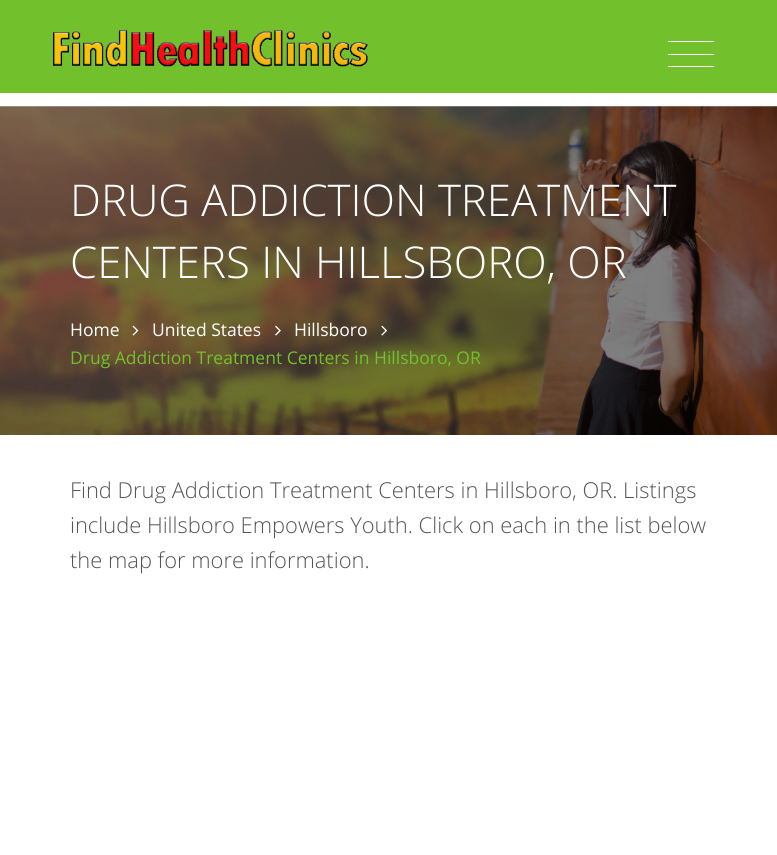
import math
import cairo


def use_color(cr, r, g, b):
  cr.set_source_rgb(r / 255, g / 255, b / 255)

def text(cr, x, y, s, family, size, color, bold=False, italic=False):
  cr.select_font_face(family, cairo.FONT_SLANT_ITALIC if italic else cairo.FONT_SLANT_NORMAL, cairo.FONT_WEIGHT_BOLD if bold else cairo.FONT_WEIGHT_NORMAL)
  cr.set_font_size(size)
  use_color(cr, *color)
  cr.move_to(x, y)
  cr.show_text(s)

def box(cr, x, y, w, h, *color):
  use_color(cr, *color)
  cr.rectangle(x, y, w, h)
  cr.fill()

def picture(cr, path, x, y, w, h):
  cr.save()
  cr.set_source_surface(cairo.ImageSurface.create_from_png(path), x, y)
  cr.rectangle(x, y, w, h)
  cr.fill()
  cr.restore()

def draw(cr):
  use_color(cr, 255, 255, 255)
  cr.paint()
  box(cr, 0, 0, 777, 93, 114, 192, 44)
  picture(cr, "img_01.png", 53, 30, 315, 37)
  box(cr, 668, 41, 46, 1, 255, 255, 255)
  box(cr, 668, 54, 46, 1, 255, 255, 255)
  box(cr, 668, 66, 46, 1, 255, 255, 255)
  picture(cr, "img_02.png", 0, 106, 777, 329)
  picture(cr, "img_03.png", 132, 325, 7, 11)
  picture(cr, "img_04.png", 275, 325, 6, 11)
  picture(cr, "img_05.png", 381, 325, 6, 11)
  text(cr, 70, 216, "DRUG ADDICTION TREATMENT", "Open Sans Light", 43.75, (255, 255, 255))
  text(cr, 70, 278, "CENTERS IN HILLSBORO, OR", "Open Sans Light", 43.75, (255, 255, 255))
  text(cr, 70, 336, "Home", "Open Sans", 17.5, (255, 255, 255))
  text(cr, 152, 336, "United States", "Open Sans", 17.5, (255, 255, 255))
  text(cr, 294, 336, "Hillsboro", "Open Sans", 17.5, (255, 255, 255))
  text(cr, 70, 364, "Drug Addiction Treatment Centers in Hillsboro, OR", "Open Sans", 17.5, (114, 192, 44))
  text(cr, 70, 498, "Find Drug Addiction Treatment Centers in Hillsboro, OR. Listings", "Open Sans Light", 21.9, (85, 85, 85))
  text(cr, 70, 533, "include Hillsboro Empowers Youth. Click on each in the list below", "Open Sans Light", 21.9, (85, 85, 85))
  text(cr, 70, 568, "the map for more information.", "Open Sans Light", 21.9, (85, 85, 85))


surface = cairo.ImageSurface(cairo.FORMAT_RGB24, 777, 855)
cr = cairo.Context(surface)
options = cairo.FontOptions()
options.set_hint_metrics(cairo.HINT_METRICS_OFF)
options.set_hint_style(cairo.HINT_STYLE_NONE)
cr.set_font_options(options)
cr.set_miter_limit(4)
draw(cr)
surface.write_to_png("out.png")
